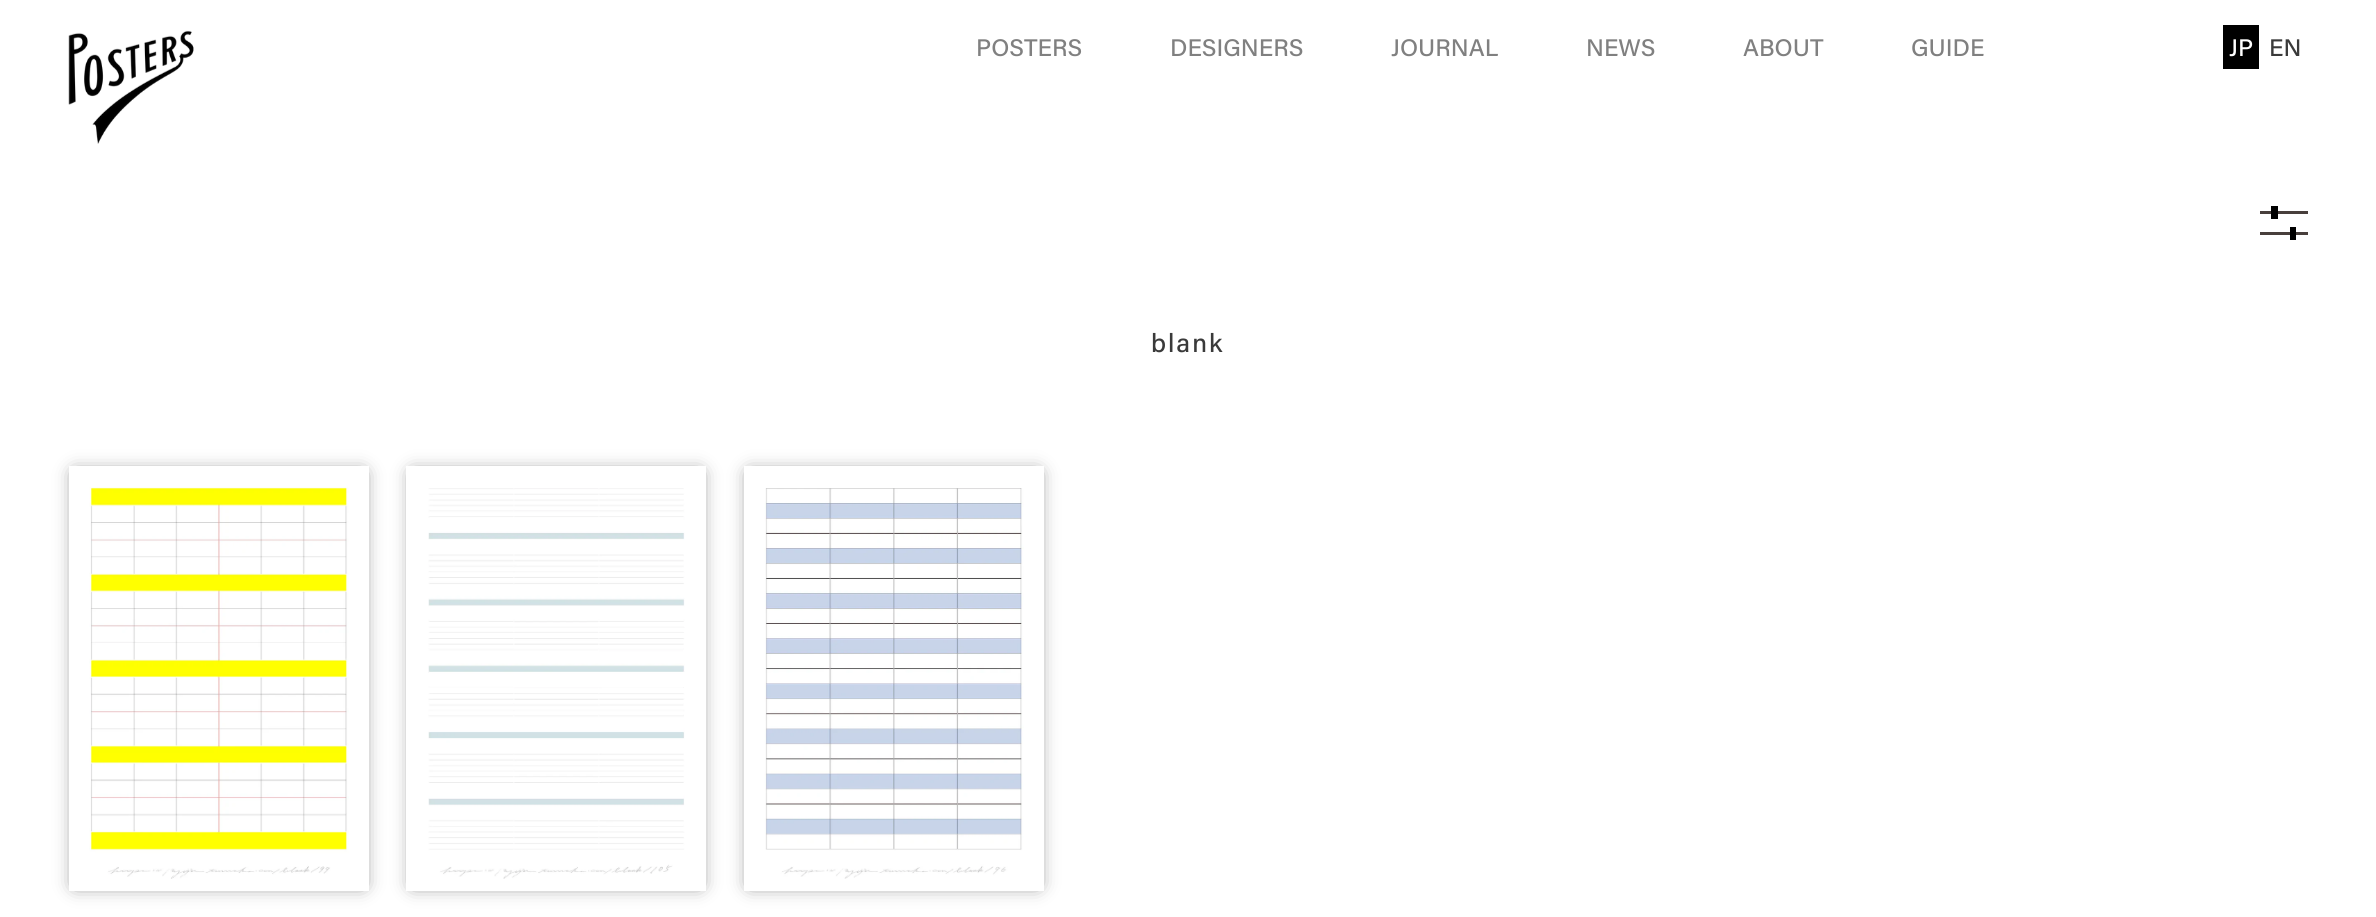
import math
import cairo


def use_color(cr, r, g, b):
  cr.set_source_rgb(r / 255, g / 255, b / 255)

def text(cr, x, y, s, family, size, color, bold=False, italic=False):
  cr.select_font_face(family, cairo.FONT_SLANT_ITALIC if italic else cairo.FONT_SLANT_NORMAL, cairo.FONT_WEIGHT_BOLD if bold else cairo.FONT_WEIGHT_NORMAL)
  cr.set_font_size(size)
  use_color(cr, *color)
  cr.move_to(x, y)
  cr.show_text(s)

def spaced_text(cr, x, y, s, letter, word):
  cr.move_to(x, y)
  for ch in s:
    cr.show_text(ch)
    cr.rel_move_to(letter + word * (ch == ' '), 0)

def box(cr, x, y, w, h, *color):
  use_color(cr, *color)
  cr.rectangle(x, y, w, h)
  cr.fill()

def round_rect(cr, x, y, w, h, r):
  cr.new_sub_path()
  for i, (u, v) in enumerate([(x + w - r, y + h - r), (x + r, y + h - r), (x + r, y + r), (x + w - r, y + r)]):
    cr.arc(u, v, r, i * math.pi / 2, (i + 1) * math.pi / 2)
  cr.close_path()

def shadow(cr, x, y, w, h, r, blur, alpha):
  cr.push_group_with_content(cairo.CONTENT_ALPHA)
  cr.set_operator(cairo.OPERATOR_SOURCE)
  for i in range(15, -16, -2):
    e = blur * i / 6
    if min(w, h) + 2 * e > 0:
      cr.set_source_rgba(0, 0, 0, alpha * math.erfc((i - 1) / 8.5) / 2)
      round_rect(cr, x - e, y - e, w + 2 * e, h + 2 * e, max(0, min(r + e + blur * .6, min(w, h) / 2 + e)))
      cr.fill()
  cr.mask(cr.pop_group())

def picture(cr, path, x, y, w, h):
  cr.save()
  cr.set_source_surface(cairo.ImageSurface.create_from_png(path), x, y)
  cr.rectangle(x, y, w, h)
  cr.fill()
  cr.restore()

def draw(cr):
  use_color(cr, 255, 255, 255)
  cr.paint()
  picture(cr, "img_01.png", 68, 30, 126, 114)
  box(cr, 2223, 25, 36, 44, 0, 0, 0)
  box(cr, 2260, 211, 48, 3, 72, 63, 60)
  box(cr, 2271, 206, 7, 13, 0, 0, 0)
  box(cr, 2260, 232, 48, 3, 72, 63, 60)
  box(cr, 2290, 227, 6, 13, 0, 0, 0)
  picture(cr, "img_02.png", 89, 487, 260, 392)
  cr.save()
  cr.set_fill_rule(cairo.FILL_RULE_EVEN_ODD)
  cr.new_path()
  cr.move_to(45, 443)
  cr.line_to(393, 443)
  cr.line_to(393, 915)
  cr.line_to(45, 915)
  cr.close_path()
  cr.move_to(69, 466)
  cr.line_to(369, 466)
  cr.line_to(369, 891)
  cr.line_to(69, 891)
  cr.close_path()
  cr.clip()
  use_color(cr, 119, 119, 119)
  shadow(cr, 75, 473, 288, 412, 0, 9.5, 1)
  cr.restore()
  picture(cr, "img_03.png", 428, 488, 257, 391)
  cr.save()
  cr.set_fill_rule(cairo.FILL_RULE_EVEN_ODD)
  cr.new_path()
  cr.move_to(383, 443)
  cr.line_to(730, 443)
  cr.line_to(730, 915)
  cr.line_to(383, 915)
  cr.close_path()
  cr.move_to(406, 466)
  cr.line_to(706, 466)
  cr.line_to(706, 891)
  cr.line_to(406, 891)
  cr.close_path()
  cr.clip()
  use_color(cr, 119, 119, 119)
  shadow(cr, 413, 473, 287, 412, 0, 9.5, 1)
  cr.restore()
  picture(cr, "img_04.png", 764, 488, 260, 391)
  cr.save()
  cr.set_fill_rule(cairo.FILL_RULE_EVEN_ODD)
  cr.new_path()
  cr.move_to(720, 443)
  cr.line_to(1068, 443)
  cr.line_to(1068, 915)
  cr.line_to(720, 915)
  cr.close_path()
  cr.move_to(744, 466)
  cr.line_to(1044, 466)
  cr.line_to(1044, 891)
  cr.line_to(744, 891)
  cr.close_path()
  cr.clip()
  use_color(cr, 119, 119, 119)
  shadow(cr, 750, 473, 288, 412, 0, 9.5, 1)
  cr.restore()
  text(cr, 976, 56, "POSTERS", "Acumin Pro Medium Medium", 24, (128, 128, 128))
  text(cr, 1170, 56, "DESIGNERS", "Acumin Pro Medium Medium", 24, (128, 128, 128))
  text(cr, 1391, 56, "JOURNAL", "Acumin Pro Medium Medium", 24, (128, 128, 128))
  text(cr, 1586, 56, "NEWS", "Acumin Pro Medium Medium", 24, (128, 128, 128))
  text(cr, 1743, 56, "ABOUT", "Acumin Pro Medium Medium", 24, (128, 128, 128))
  text(cr, 1911, 56, "GUIDE", "Acumin Pro Medium Medium", 24, (128, 128, 128))
  text(cr, 2229, 56, "JP", "Acumin Pro Medium Medium", 24, (255, 255, 255))
  text(cr, 2269, 56, "EN", "Acumin Pro Medium Medium", 24, (58, 58, 58))
  cr.set_font_size(26)
  spaced_text(cr, 1151, 352, "blank", 2, 0)


surface = cairo.ImageSurface(cairo.FORMAT_RGB24, 2376, 917)
cr = cairo.Context(surface)
options = cairo.FontOptions()
options.set_hint_metrics(cairo.HINT_METRICS_OFF)
options.set_hint_style(cairo.HINT_STYLE_NONE)
cr.set_font_options(options)
cr.set_miter_limit(4)
draw(cr)
surface.write_to_png("out.png")
